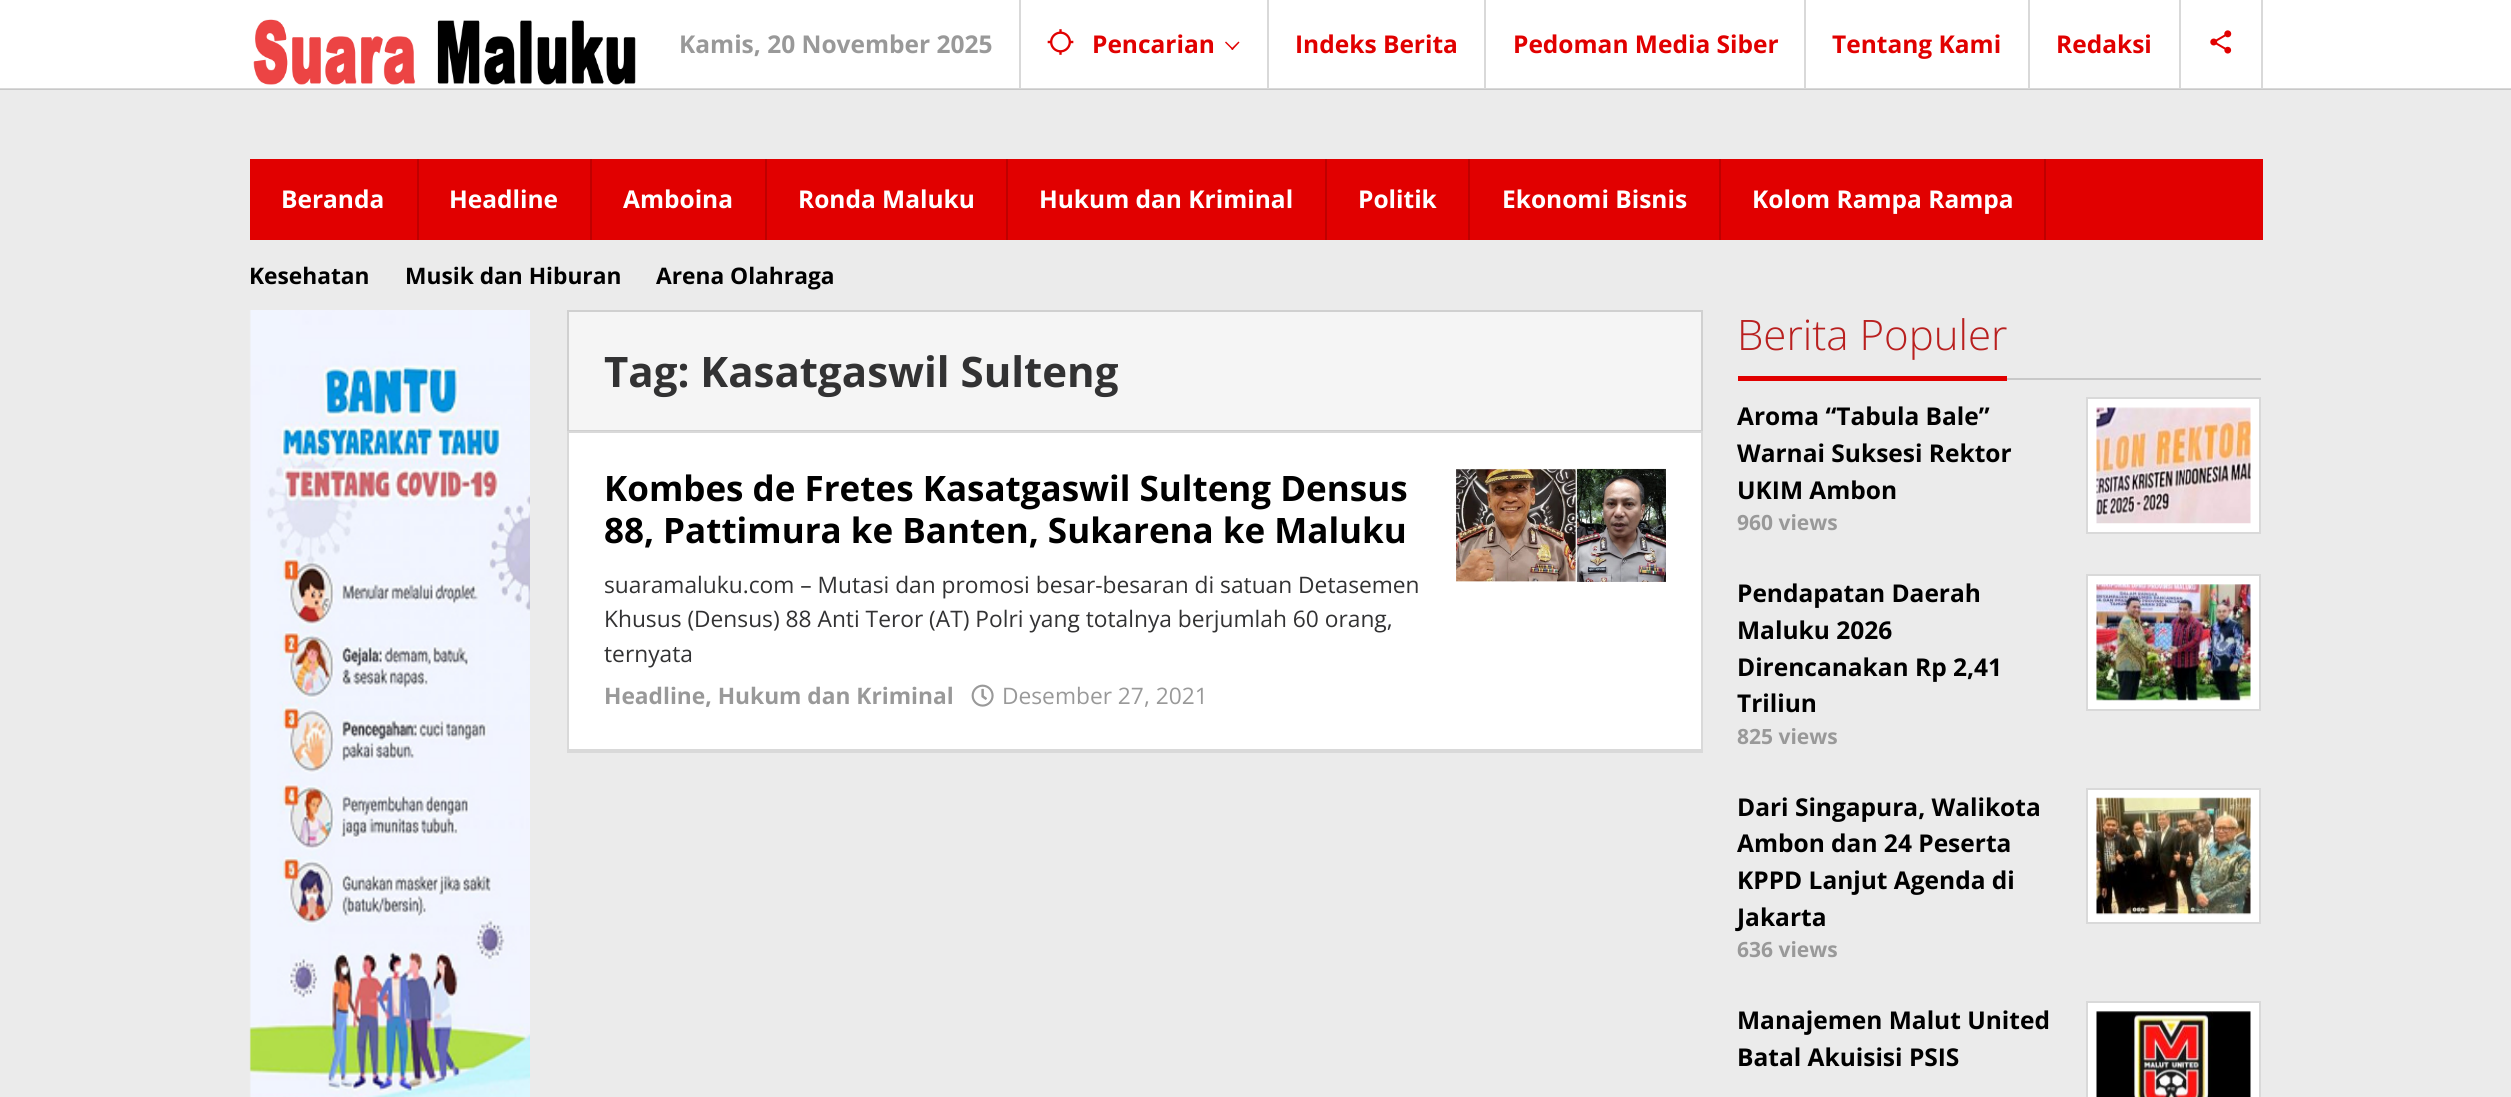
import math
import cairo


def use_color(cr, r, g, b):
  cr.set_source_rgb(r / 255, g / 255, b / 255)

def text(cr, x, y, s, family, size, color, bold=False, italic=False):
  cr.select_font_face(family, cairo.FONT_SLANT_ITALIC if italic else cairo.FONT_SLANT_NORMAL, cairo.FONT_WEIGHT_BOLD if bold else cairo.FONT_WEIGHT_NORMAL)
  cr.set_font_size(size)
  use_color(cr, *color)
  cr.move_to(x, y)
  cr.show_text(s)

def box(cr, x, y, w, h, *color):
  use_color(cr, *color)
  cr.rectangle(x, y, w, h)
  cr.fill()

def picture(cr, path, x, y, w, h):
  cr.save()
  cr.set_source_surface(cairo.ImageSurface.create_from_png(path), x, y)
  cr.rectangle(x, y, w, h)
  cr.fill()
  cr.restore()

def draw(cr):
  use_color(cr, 235, 235, 235)
  cr.paint()
  box(cr, 0, 89, 2511, 1, 200, 200, 200)
  box(cr, 0, 0, 2511, 88, 255, 255, 255)
  box(cr, 0, 88, 2511, 1, 217, 217, 217)
  picture(cr, "img_01.png", 253, 19, 383, 66)
  box(cr, 1019, 0, 2, 88, 217, 217, 217)
  box(cr, 1267, 0, 2, 88, 217, 217, 217)
  picture(cr, "img_02.png", 1047, 29, 27, 26)
  use_color(cr, 225, 0, 0)
  cr.new_path()
  cr.move_to(1238.5, 41.5)
  cr.line_to(1239.5, 42.5)
  cr.line_to(1232.5, 50)
  cr.line_to(1231, 49)
  cr.close_path()
  cr.fill()
  cr.new_path()
  cr.move_to(1226, 41.5)
  cr.line_to(1233.5, 49)
  cr.line_to(1232.5, 50)
  cr.line_to(1225, 42.5)
  cr.close_path()
  cr.fill()
  box(cr, 1484, 0, 2, 88, 217, 217, 217)
  box(cr, 1804, 0, 2, 88, 217, 217, 217)
  box(cr, 2028, 0, 2, 88, 217, 217, 217)
  box(cr, 2179, 0, 2, 88, 217, 217, 217)
  box(cr, 2261, 0, 2, 88, 217, 217, 217)
  picture(cr, "img_03.png", 2210, 30, 22, 24)
  box(cr, 250, 159, 2013, 81, 225, 0, 0)
  box(cr, 417, 159, 2, 81, 191, 0, 0)
  box(cr, 590, 159, 2, 81, 191, 0, 0)
  box(cr, 765, 159, 2, 81, 191, 0, 0)
  box(cr, 1006, 159, 2, 81, 191, 0, 0)
  box(cr, 1325, 159, 2, 81, 191, 0, 0)
  box(cr, 1468, 159, 2, 81, 191, 0, 0)
  box(cr, 1719, 159, 2, 81, 191, 0, 0)
  box(cr, 2044, 159, 2, 81, 191, 0, 0)
  picture(cr, "img_04.png", 249, 310, 281, 787)
  use_color(cr, 245, 245, 245)
  cr.rectangle(568, 311, 1134, 120)
  cr.fill_preserve()
  use_color(cr, 208, 208, 208)
  cr.stroke()
  box(cr, 569, 433, 1132, 316, 255, 255, 255)
  cr.rectangle(568, 432, 1134, 320)
  use_color(cr, 217, 217, 217)
  cr.stroke()
  box(cr, 569, 749, 1132, 2, 217, 217, 217)
  picture(cr, "img_05.png", 971, 684, 23, 23)
  picture(cr, "img_06.png", 1456, 468, 210, 114)
  box(cr, 2007, 378, 254, 2, 200, 200, 200)
  box(cr, 1738, 376, 269, 5, 225, 0, 0)
  use_color(cr, 255, 255, 255)
  cr.rectangle(2087, 398, 173, 135)
  cr.fill_preserve()
  use_color(cr, 217, 217, 217)
  cr.stroke()
  picture(cr, "img_07.png", 2096, 407, 155, 117)
  use_color(cr, 255, 255, 255)
  cr.rectangle(2087, 575, 173, 135)
  cr.fill_preserve()
  use_color(cr, 217, 217, 217)
  cr.stroke()
  picture(cr, "img_08.png", 2096, 584, 155, 117)
  use_color(cr, 255, 255, 255)
  cr.rectangle(2087, 789, 173, 134)
  cr.fill_preserve()
  use_color(cr, 217, 217, 217)
  cr.stroke()
  picture(cr, "img_09.png", 2096, 797, 155, 118)
  use_color(cr, 255, 255, 255)
  cr.rectangle(2087, 1002, 173, 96)
  cr.fill_preserve()
  use_color(cr, 217, 217, 217)
  cr.stroke()
  picture(cr, "img_10.png", 2096, 1011, 155, 86)
  text(cr, 679, 53, "Kamis, 20 November 2025", "Open Sans", 24.5, (153, 153, 153), bold=True)
  text(cr, 1092, 53, "Pencarian", "Open Sans", 24.5, (225, 0, 0), bold=True)
  text(cr, 1295, 53, "Indeks Berita", "Open Sans", 24.5, (225, 0, 0), bold=True)
  text(cr, 1513, 53, "Pedoman Media Siber", "Open Sans", 24.5, (225, 0, 0), bold=True)
  text(cr, 1832, 53, "Tentang Kami", "Open Sans", 24.5, (225, 0, 0), bold=True)
  text(cr, 2056, 53, "Redaksi", "Open Sans", 24.5, (225, 0, 0), bold=True)
  text(cr, 281, 208, "Beranda", "Open Sans", 24.5, (255, 255, 255), bold=True)
  text(cr, 449, 208, "Headline", "Open Sans", 24.5, (255, 255, 255), bold=True)
  text(cr, 623, 208, "Amboina", "Open Sans", 24.5, (255, 255, 255), bold=True)
  text(cr, 798, 208, "Ronda Maluku", "Open Sans", 24.5, (255, 255, 255), bold=True)
  text(cr, 1039, 208, "Hukum dan Kriminal", "Open Sans", 24.5, (255, 255, 255), bold=True)
  text(cr, 1358, 208, "Politik", "Open Sans", 24.5, (255, 255, 255), bold=True)
  text(cr, 1502, 208, "Ekonomi Bisnis", "Open Sans", 24.5, (255, 255, 255), bold=True)
  text(cr, 1752, 208, "Kolom Rampa Rampa", "Open Sans", 24.5, (255, 255, 255), bold=True)
  text(cr, 249, 284, "Kesehatan", "Open Sans", 22.75, (0, 0, 0), bold=True)
  text(cr, 405, 284, "Musik dan Hiburan", "Open Sans", 22.75, (0, 0, 0), bold=True)
  text(cr, 656, 284, "Arena Olahraga", "Open Sans", 22.75, (0, 0, 0), bold=True)
  text(cr, 604, 387, "Tag: Kasatgaswil Sulteng", "Open Sans", 42, (50, 50, 51), bold=True)
  text(cr, 604, 501, "Kombes de Fretes Kasatgaswil Sulteng Densus", "Open Sans", 35, (0, 0, 0), bold=True)
  text(cr, 604, 543, "88, Pattimura ke Banten, Sukarena ke Maluku", "Open Sans", 35, (0, 0, 0), bold=True)
  text(cr, 604, 593, "suaramaluku.com – Mutasi dan promosi besar-besaran di satuan Detasemen", "Open Sans", 22.75, (50, 50, 51))
  text(cr, 604, 627, "Khusus (Densus) 88 Anti Teror (AT) Polri yang totalnya berjumlah 60 orang,", "Open Sans", 22.75, (50, 50, 51))
  text(cr, 604, 662, "ternyata", "Open Sans", 22.75, (50, 50, 51))
  text(cr, 604, 704, "Headline, Hukum dan Kriminal", "Open Sans", 22.75, (153, 153, 153), bold=True)
  text(cr, 1002, 704, "Desember 27, 2021", "Open Sans", 22.75, (153, 153, 153))
  text(cr, 1737, 350, "Berita Populer", "Open Sans Light", 42, (185, 32, 31))
  text(cr, 1737, 425, "Aroma “Tabula Bale”", "Open Sans", 24.5, (0, 0, 0), bold=True)
  text(cr, 1737, 462, "Warnai Suksesi Rektor", "Open Sans", 24.5, (0, 0, 0), bold=True)
  text(cr, 1737, 499, "UKIM Ambon", "Open Sans", 24.5, (0, 0, 0), bold=True)
  text(cr, 1737, 530, "960 views", "Open Sans", 21, (153, 153, 153), bold=True)
  text(cr, 1737, 602, "Pendapatan Daerah", "Open Sans", 24.5, (0, 0, 0), bold=True)
  text(cr, 1737, 639, "Maluku 2026", "Open Sans", 24.5, (0, 0, 0), bold=True)
  text(cr, 1737, 676, "Direncanakan Rp 2,41", "Open Sans", 24.5, (0, 0, 0), bold=True)
  text(cr, 1737, 712, "Triliun", "Open Sans", 24.5, (0, 0, 0), bold=True)
  text(cr, 1737, 744, "825 views", "Open Sans", 21, (153, 153, 153), bold=True)
  text(cr, 1737, 816, "Dari Singapura, Walikota", "Open Sans", 24.5, (0, 0, 0), bold=True)
  text(cr, 1737, 852, "Ambon dan 24 Peserta", "Open Sans", 24.5, (0, 0, 0), bold=True)
  text(cr, 1737, 889, "KPPD Lanjut Agenda di", "Open Sans", 24.5, (0, 0, 0), bold=True)
  text(cr, 1737, 926, "Jakarta", "Open Sans", 24.5, (0, 0, 0), bold=True)
  text(cr, 1737, 957, "636 views", "Open Sans", 21, (153, 153, 153), bold=True)
  text(cr, 1737, 1029, "Manajemen Malut United", "Open Sans", 24.5, (0, 0, 0), bold=True)
  text(cr, 1737, 1066, "Batal Akuisisi PSIS", "Open Sans", 24.5, (0, 0, 0), bold=True)


surface = cairo.ImageSurface(cairo.FORMAT_RGB24, 2511, 1097)
cr = cairo.Context(surface)
options = cairo.FontOptions()
options.set_hint_metrics(cairo.HINT_METRICS_OFF)
options.set_hint_style(cairo.HINT_STYLE_NONE)
cr.set_font_options(options)
cr.set_miter_limit(4)
draw(cr)
surface.write_to_png("out.png")
